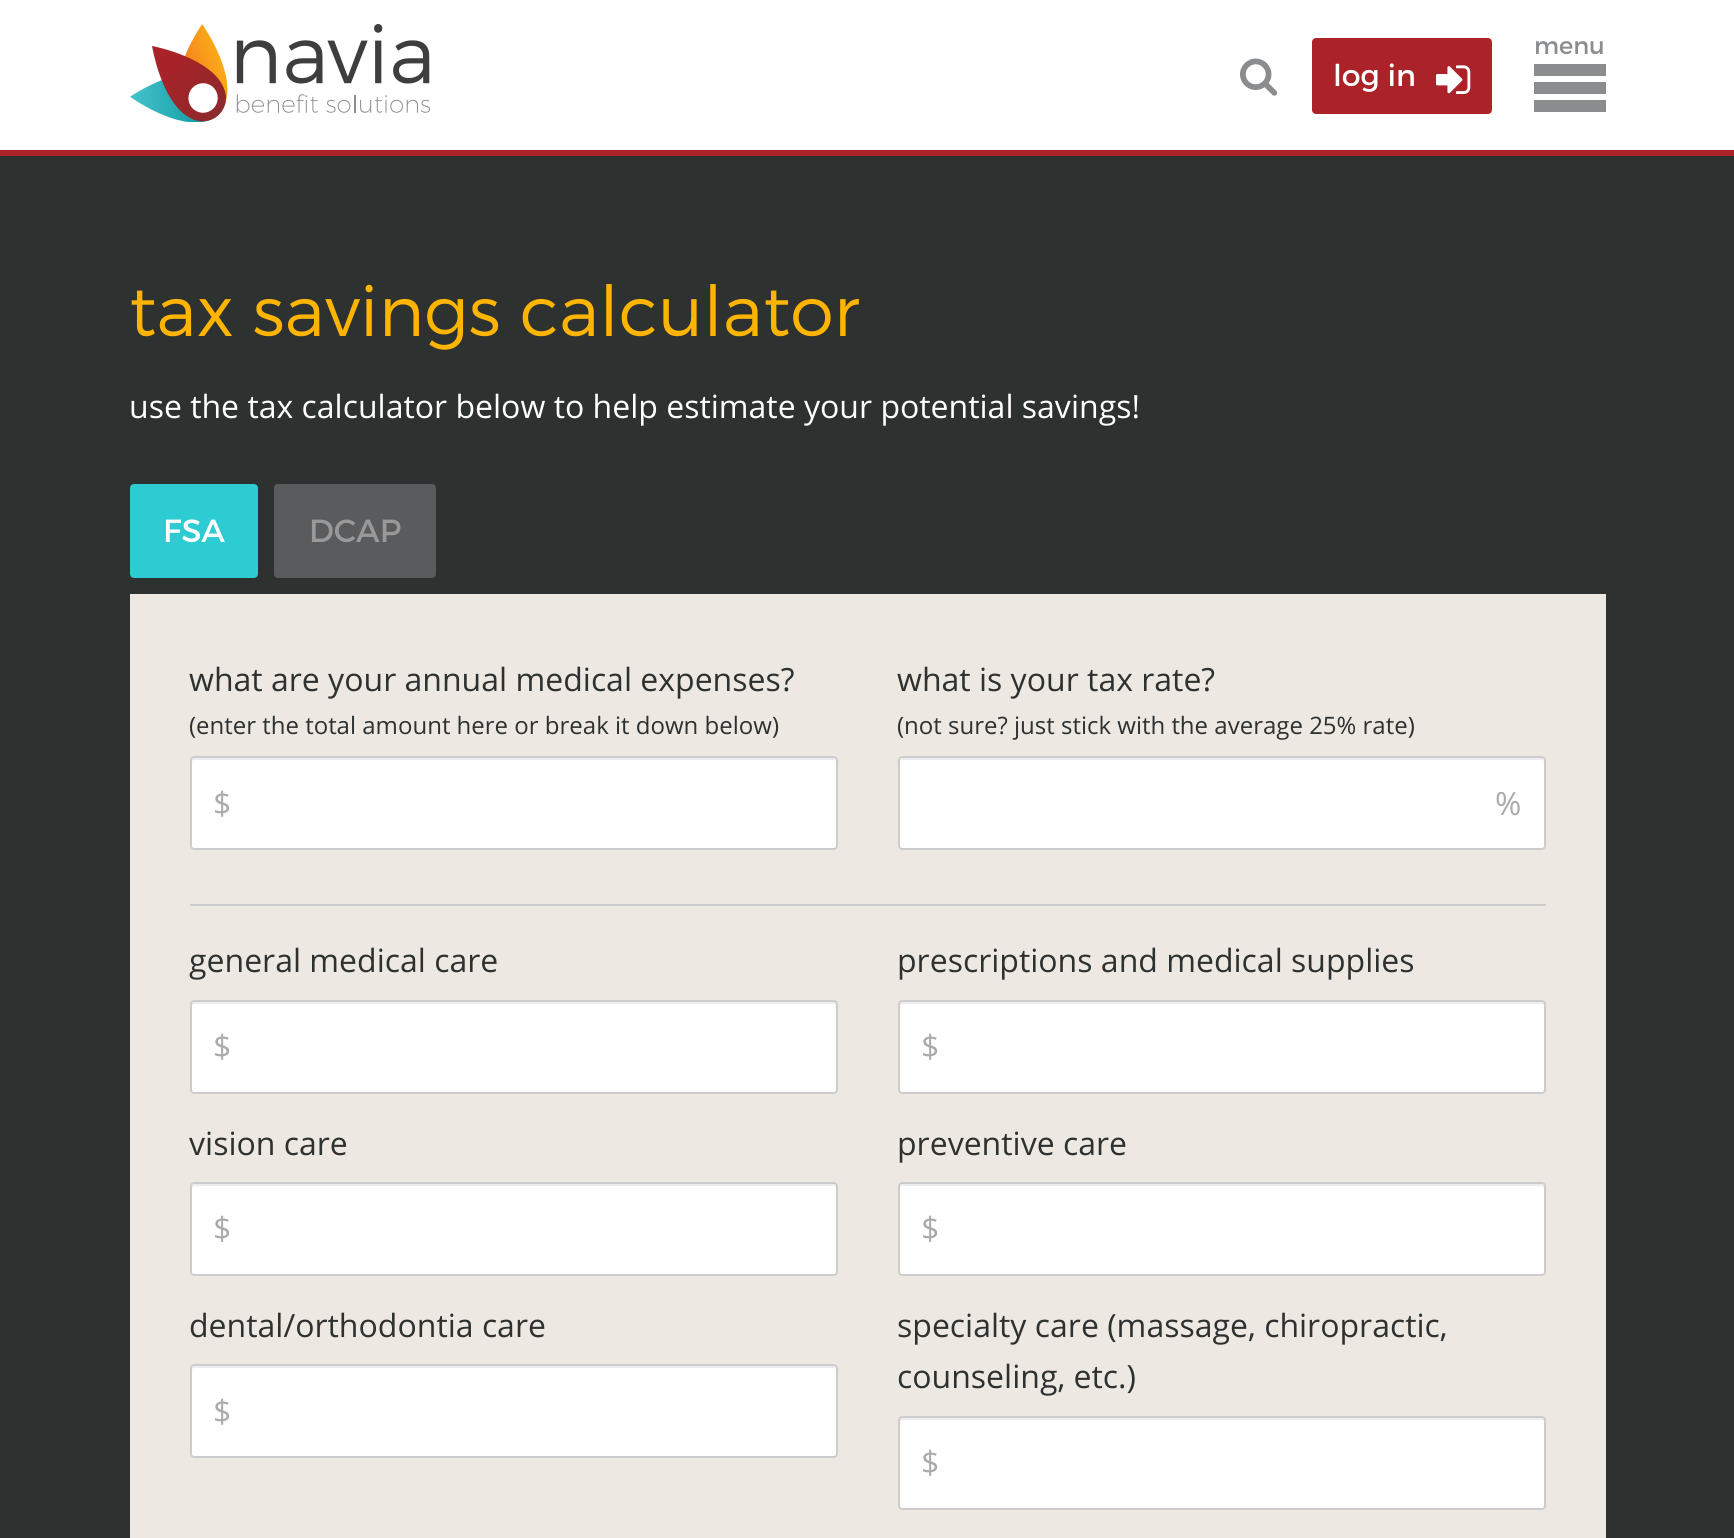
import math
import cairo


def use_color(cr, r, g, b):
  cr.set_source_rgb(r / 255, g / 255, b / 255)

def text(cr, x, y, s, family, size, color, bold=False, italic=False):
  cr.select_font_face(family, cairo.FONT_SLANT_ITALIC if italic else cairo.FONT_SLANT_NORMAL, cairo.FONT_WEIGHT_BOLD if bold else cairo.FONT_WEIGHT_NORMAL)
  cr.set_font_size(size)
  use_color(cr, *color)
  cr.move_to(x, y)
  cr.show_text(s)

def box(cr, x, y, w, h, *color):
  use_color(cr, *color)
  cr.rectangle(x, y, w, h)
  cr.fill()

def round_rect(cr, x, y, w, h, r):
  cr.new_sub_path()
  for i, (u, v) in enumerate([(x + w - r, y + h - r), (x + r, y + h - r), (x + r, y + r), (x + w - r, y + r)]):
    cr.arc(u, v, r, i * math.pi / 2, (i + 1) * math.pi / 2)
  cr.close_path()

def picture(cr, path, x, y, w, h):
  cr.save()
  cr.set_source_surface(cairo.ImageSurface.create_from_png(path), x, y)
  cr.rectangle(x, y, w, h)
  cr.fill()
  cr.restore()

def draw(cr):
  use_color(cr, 255, 255, 255)
  cr.paint()
  box(cr, 0, 150, 1734, 6, 171, 35, 40)
  picture(cr, "img_01.png", 130, 24, 300, 98)
  box(cr, 1534, 64, 72, 12, 138, 140, 142)
  box(cr, 1534, 82, 72, 12, 138, 140, 142)
  box(cr, 1534, 100, 72, 12, 138, 140, 142)
  picture(cr, "img_02.png", 1240, 58, 38, 38)
  use_color(cr, 171, 35, 40)
  round_rect(cr, 1313, 39, 178, 74, 3)
  cr.fill_preserve()
  cr.stroke()
  picture(cr, "img_03.png", 1436, 65, 35, 29)
  box(cr, 0, 156, 1734, 1382, 45, 49, 48)
  use_color(cr, 45, 204, 211)
  round_rect(cr, 131, 485, 126, 92, 3)
  cr.fill_preserve()
  cr.stroke()
  use_color(cr, 90, 91, 93)
  round_rect(cr, 275, 485, 160, 92, 3)
  cr.fill_preserve()
  cr.stroke()
  box(cr, 130, 594, 1476, 944, 237, 232, 226)
  use_color(cr, 255, 255, 255)
  round_rect(cr, 190, 756, 648, 94, 4)
  cr.fill()
  use_color(cr, 236, 236, 236)
  cr.new_path()
  cr.move_to(194, 760)
  cr.line_to(834, 760)
  cr.curve_to(835, 760, 836, 761, 836, 762)
  cr.curve_to(836, 760, 836, 758, 834, 758)
  cr.line_to(194, 758)
  cr.line_to(192, 759)
  cr.line_to(192, 762)
  cr.curve_to(192, 761, 193, 760, 194, 760)
  cr.close_path()
  cr.fill()
  round_rect(cr, 191, 757, 646, 92, 3)
  use_color(cr, 204, 204, 204)
  cr.stroke()
  use_color(cr, 255, 255, 255)
  round_rect(cr, 898, 756, 648, 94, 4)
  cr.fill()
  use_color(cr, 236, 236, 236)
  cr.new_path()
  cr.move_to(902, 760)
  cr.line_to(1542, 760)
  cr.curve_to(1543, 760, 1544, 761, 1544, 762)
  cr.curve_to(1544, 760, 1544, 758, 1542, 758)
  cr.line_to(902, 758)
  cr.line_to(900, 759)
  cr.line_to(900, 762)
  cr.curve_to(900, 761, 901, 760, 902, 760)
  cr.close_path()
  cr.fill()
  round_rect(cr, 899, 757, 646, 92, 3)
  use_color(cr, 204, 204, 204)
  cr.stroke()
  box(cr, 190, 904, 1356, 2, 204, 204, 204)
  use_color(cr, 255, 255, 255)
  round_rect(cr, 190, 1000, 648, 94, 4)
  cr.fill()
  use_color(cr, 236, 236, 236)
  cr.new_path()
  cr.move_to(194, 1004)
  cr.line_to(834, 1004)
  cr.curve_to(835, 1004, 836, 1005, 836, 1006)
  cr.curve_to(836, 1004, 836, 1002, 834, 1002)
  cr.line_to(194, 1002)
  cr.line_to(192, 1003)
  cr.line_to(192, 1006)
  cr.curve_to(192, 1005, 193, 1004, 194, 1004)
  cr.close_path()
  cr.fill()
  round_rect(cr, 191, 1001, 646, 92, 3)
  use_color(cr, 204, 204, 204)
  cr.stroke()
  use_color(cr, 255, 255, 255)
  round_rect(cr, 898, 1000, 648, 94, 4)
  cr.fill()
  use_color(cr, 236, 236, 236)
  cr.new_path()
  cr.move_to(902, 1004)
  cr.line_to(1542, 1004)
  cr.curve_to(1543, 1004, 1544, 1005, 1544, 1006)
  cr.curve_to(1544, 1004, 1544, 1002, 1542, 1002)
  cr.line_to(902, 1002)
  cr.line_to(900, 1003)
  cr.line_to(900, 1006)
  cr.curve_to(900, 1005, 901, 1004, 902, 1004)
  cr.close_path()
  cr.fill()
  round_rect(cr, 899, 1001, 646, 92, 3)
  use_color(cr, 204, 204, 204)
  cr.stroke()
  use_color(cr, 255, 255, 255)
  round_rect(cr, 190, 1182, 648, 94, 4)
  cr.fill()
  use_color(cr, 236, 236, 236)
  cr.new_path()
  cr.move_to(194, 1186)
  cr.line_to(834, 1186)
  cr.curve_to(835, 1186, 836, 1187, 836, 1188)
  cr.curve_to(836, 1186, 836, 1184, 834, 1184)
  cr.line_to(194, 1184)
  cr.line_to(192, 1185)
  cr.line_to(192, 1188)
  cr.curve_to(192, 1187, 193, 1186, 194, 1186)
  cr.close_path()
  cr.fill()
  round_rect(cr, 191, 1183, 646, 92, 3)
  use_color(cr, 204, 204, 204)
  cr.stroke()
  use_color(cr, 255, 255, 255)
  round_rect(cr, 898, 1182, 648, 94, 4)
  cr.fill()
  use_color(cr, 236, 236, 236)
  cr.new_path()
  cr.move_to(902, 1186)
  cr.line_to(1542, 1186)
  cr.curve_to(1543, 1186, 1544, 1187, 1544, 1188)
  cr.curve_to(1544, 1186, 1544, 1184, 1542, 1184)
  cr.line_to(902, 1184)
  cr.line_to(900, 1185)
  cr.line_to(900, 1188)
  cr.curve_to(900, 1187, 901, 1186, 902, 1186)
  cr.close_path()
  cr.fill()
  round_rect(cr, 899, 1183, 646, 92, 3)
  use_color(cr, 204, 204, 204)
  cr.stroke()
  use_color(cr, 255, 255, 255)
  round_rect(cr, 190, 1364, 648, 94, 4)
  cr.fill()
  use_color(cr, 236, 236, 236)
  cr.new_path()
  cr.move_to(194, 1368)
  cr.line_to(834, 1368)
  cr.curve_to(835, 1368, 836, 1369, 836, 1370)
  cr.curve_to(836, 1368, 836, 1366, 834, 1366)
  cr.line_to(194, 1366)
  cr.line_to(192, 1367)
  cr.line_to(192, 1370)
  cr.curve_to(192, 1369, 193, 1368, 194, 1368)
  cr.close_path()
  cr.fill()
  round_rect(cr, 191, 1365, 646, 92, 3)
  use_color(cr, 204, 204, 204)
  cr.stroke()
  use_color(cr, 255, 255, 255)
  round_rect(cr, 898, 1416, 648, 94, 4)
  cr.fill()
  use_color(cr, 236, 236, 236)
  cr.new_path()
  cr.move_to(902, 1420)
  cr.line_to(1542, 1420)
  cr.curve_to(1543, 1420, 1544, 1421, 1544, 1422)
  cr.curve_to(1544, 1420, 1544, 1418, 1542, 1418)
  cr.line_to(902, 1418)
  cr.line_to(900, 1419)
  cr.line_to(900, 1422)
  cr.curve_to(900, 1421, 901, 1420, 902, 1420)
  cr.close_path()
  cr.fill()
  round_rect(cr, 899, 1417, 646, 92, 3)
  use_color(cr, 204, 204, 204)
  cr.stroke()
  text(cr, 1534, 54, "menu", "Montserrat", 24, (138, 140, 142))
  text(cr, 1333, 86, "log in", "Montserrat", 30, (255, 255, 255))
  text(cr, 129, 336, "tax savings calculator", "Montserrat Light", 70, (255, 181, 0))
  text(cr, 129, 418, "use the tax calculator below to help estimate your potential savings!", "Open Sans", 32, (255, 255, 255))
  text(cr, 163, 542, "FSA", "Montserrat", 32, (255, 255, 255))
  text(cr, 309, 542, "DCAP", "Montserrat", 32, (153, 153, 153))
  text(cr, 189, 691, "what are your annual medical expenses?", "Open Sans", 32, (45, 49, 48))
  text(cr, 189, 734, "(enter the total amount here or break it down below)", "Open Sans", 24, (45, 49, 48))
  text(cr, 213, 815, "$", "Open Sans", 32, (170, 170, 170))
  text(cr, 897, 691, "what is your tax rate?", "Open Sans", 32, (45, 49, 48))
  text(cr, 897, 734, "(not sure? just stick with the average 25% rate)", "Open Sans", 24, (45, 49, 48))
  text(cr, 1495, 815, "%", "Open Sans", 32, (170, 170, 170))
  text(cr, 189, 972, "general medical care", "Open Sans", 32, (45, 49, 48))
  text(cr, 213, 1058, "$", "Open Sans", 32, (170, 170, 170))
  text(cr, 897, 972, "prescriptions and medical supplies", "Open Sans", 32, (45, 49, 48))
  text(cr, 921, 1058, "$", "Open Sans", 32, (170, 170, 170))
  text(cr, 189, 1155, "vision care", "Open Sans", 32, (45, 49, 48))
  text(cr, 213, 1240, "$", "Open Sans", 32, (170, 170, 170))
  text(cr, 897, 1155, "preventive care", "Open Sans", 32, (45, 49, 48))
  text(cr, 921, 1240, "$", "Open Sans", 32, (170, 170, 170))
  text(cr, 189, 1337, "dental/orthodontia care", "Open Sans", 32, (45, 49, 48))
  text(cr, 213, 1423, "$", "Open Sans", 32, (170, 170, 170))
  text(cr, 897, 1337, "specialty care (massage, chiropractic,", "Open Sans", 32, (45, 49, 48))
  text(cr, 897, 1388, "counseling, etc.)", "Open Sans", 32, (45, 49, 48))
  text(cr, 921, 1474, "$", "Open Sans", 32, (170, 170, 170))


surface = cairo.ImageSurface(cairo.FORMAT_RGB24, 1734, 1538)
cr = cairo.Context(surface)
options = cairo.FontOptions()
options.set_hint_metrics(cairo.HINT_METRICS_OFF)
options.set_hint_style(cairo.HINT_STYLE_NONE)
cr.set_font_options(options)
cr.set_miter_limit(4)
draw(cr)
surface.write_to_png("out.png")
